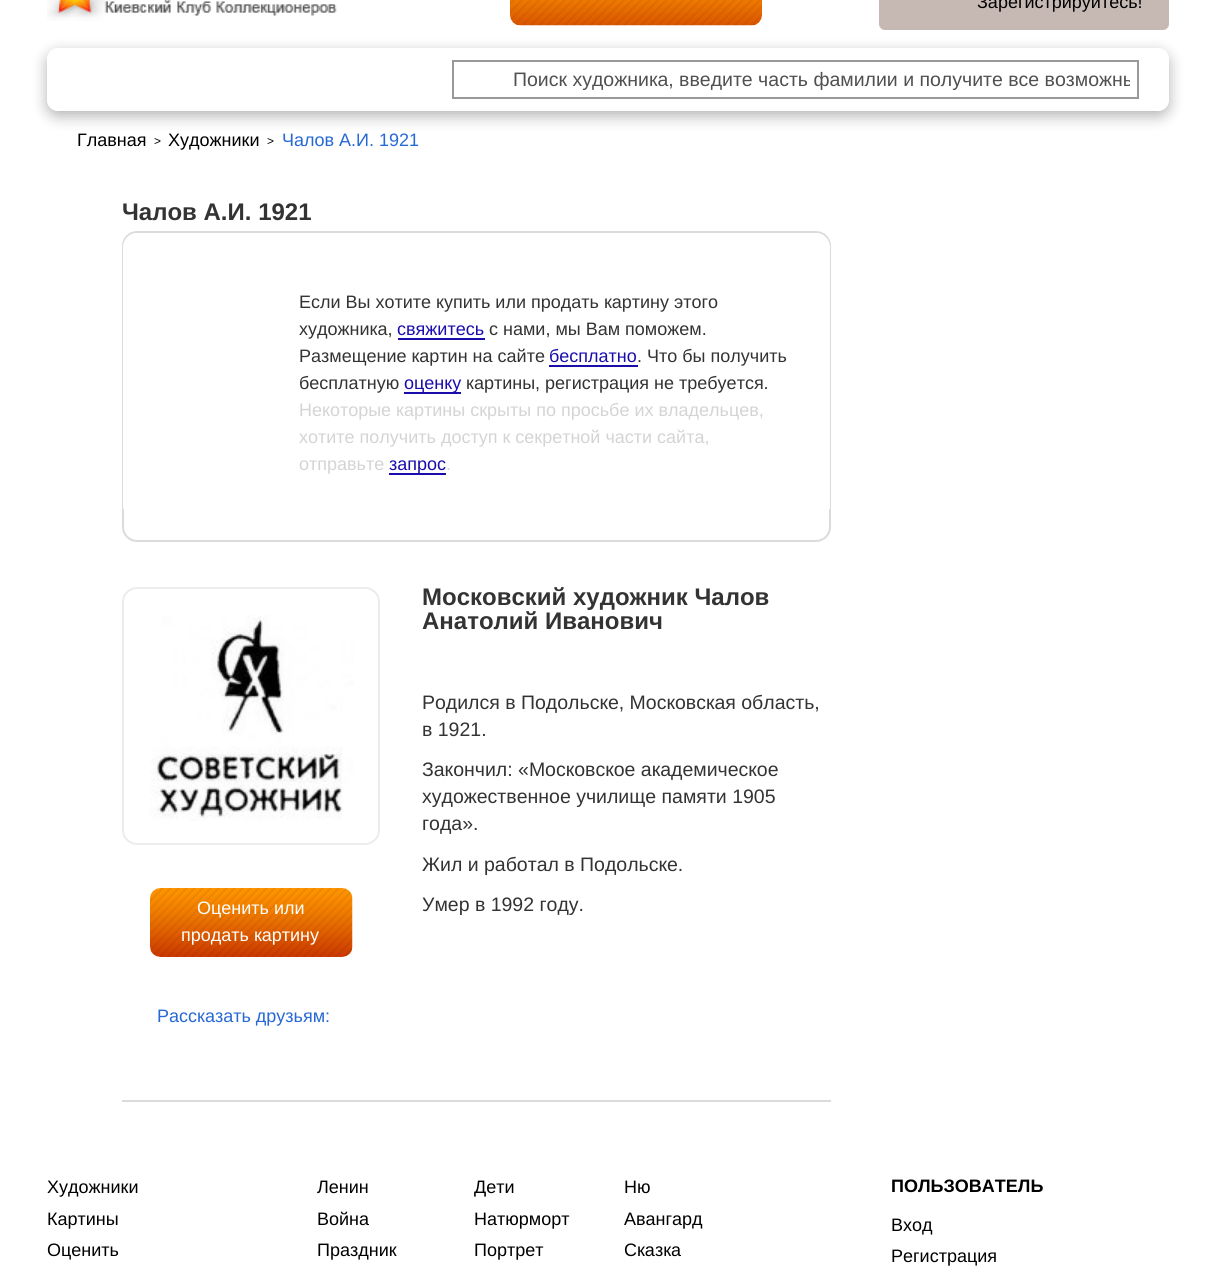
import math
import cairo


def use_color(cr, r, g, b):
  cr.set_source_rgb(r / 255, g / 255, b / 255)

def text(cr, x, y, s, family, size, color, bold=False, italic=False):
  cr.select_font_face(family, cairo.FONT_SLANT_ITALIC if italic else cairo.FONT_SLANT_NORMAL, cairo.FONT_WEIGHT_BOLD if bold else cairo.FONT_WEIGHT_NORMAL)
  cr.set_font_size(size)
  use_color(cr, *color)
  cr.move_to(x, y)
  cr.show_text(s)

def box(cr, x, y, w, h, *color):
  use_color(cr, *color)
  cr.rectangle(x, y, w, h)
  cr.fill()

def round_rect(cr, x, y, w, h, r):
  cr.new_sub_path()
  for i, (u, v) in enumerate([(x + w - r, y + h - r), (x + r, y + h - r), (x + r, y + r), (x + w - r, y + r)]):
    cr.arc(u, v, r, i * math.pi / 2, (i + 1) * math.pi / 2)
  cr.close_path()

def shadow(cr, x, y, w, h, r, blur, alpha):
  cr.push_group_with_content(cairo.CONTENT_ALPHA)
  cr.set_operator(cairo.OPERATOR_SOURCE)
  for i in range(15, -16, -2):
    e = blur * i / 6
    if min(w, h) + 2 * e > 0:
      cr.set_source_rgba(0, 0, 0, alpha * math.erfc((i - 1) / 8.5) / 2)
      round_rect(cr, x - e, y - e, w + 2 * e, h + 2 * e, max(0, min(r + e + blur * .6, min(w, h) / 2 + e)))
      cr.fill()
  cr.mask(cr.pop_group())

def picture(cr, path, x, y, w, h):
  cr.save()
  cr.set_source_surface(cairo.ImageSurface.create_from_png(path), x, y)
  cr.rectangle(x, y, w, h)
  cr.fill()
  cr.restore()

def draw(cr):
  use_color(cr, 255, 255, 255)
  cr.paint()
  picture(cr, "img_01.png", 47, 0, 290, 21)
  picture(cr, "img_02.png", 510, 0, 252, 26)
  use_color(cr, 198, 185, 180)
  round_rect(cr, 879, -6, 290, 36, 6)
  cr.fill()
  cr.save()
  cr.set_fill_rule(cairo.FILL_RULE_EVEN_ODD)
  cr.new_path()
  cr.move_to(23, 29)
  cr.line_to(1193, 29)
  cr.line_to(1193, 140)
  cr.line_to(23, 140)
  cr.close_path()
  cr.move_to(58, 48)
  cr.line_to(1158, 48)
  cr.curve_to(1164, 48, 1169, 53, 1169, 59)
  cr.line_to(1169, 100)
  cr.curve_to(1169, 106, 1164, 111, 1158, 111)
  cr.line_to(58, 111)
  cr.curve_to(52, 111, 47, 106, 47, 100)
  cr.line_to(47, 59)
  cr.curve_to(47, 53, 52, 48, 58, 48)
  cr.close_path()
  cr.clip()
  use_color(cr, 0, 0, 0)
  shadow(cr, 47, 53, 1122, 63, 11, 7.5, 0.3)
  cr.restore()
  cr.rectangle(453, 61, 685, 37)
  use_color(cr, 153, 153, 153)
  cr.stroke()
  round_rect(cr, 123, 232, 707, 309, 14)
  use_color(cr, 219, 219, 219)
  cr.stroke()
  use_color(cr, 255, 255, 255)
  cr.new_path()
  cr.move_to(137, 233)
  cr.line_to(816, 233)
  cr.curve_to(823.5, 233, 830, 239.5, 830, 247)
  cr.line_to(830, 509)
  cr.line_to(123, 509)
  cr.line_to(123, 247)
  cr.curve_to(123, 239.5, 129.5, 233, 137, 233)
  cr.close_path()
  cr.fill()
  box(cr, 398, 338, 87, 2, 26, 13, 171)
  box(cr, 549, 365, 89, 2, 26, 13, 171)
  box(cr, 404, 392, 57, 2, 26, 13, 171)
  box(cr, 389, 473, 57, 2, 26, 13, 171)
  box(cr, 122, 1100, 709, 2, 219, 219, 219)
  round_rect(cr, 123, 588, 256, 256, 14)
  use_color(cr, 236, 236, 236)
  cr.stroke()
  picture(cr, "img_03.png", 150, 615, 204, 206)
  picture(cr, "img_04.png", 150, 888, 203, 69)
  text(cr, 977, 8, "Зарегистрируйтесь!", "Liberation Sans", 18, (0, 0, 0))
  cr.save()
  cr.rectangle(513, 68, 617, 22)
  cr.clip()
  text(cr, 513, 86, "Поиск художника, введите часть фамилии и получите все возможны", "Liberation Sans", 19.5, (80, 80, 80))
  cr.restore()
  text(cr, 77, 146, "Главная", "Liberation Sans", 18, (0, 0, 0))
  text(cr, 154, 145, ">", "Liberation Sans", 12, (0, 0, 0))
  text(cr, 168, 146, "Художники", "Liberation Sans", 18, (0, 0, 0))
  text(cr, 267, 145, ">", "Liberation Sans", 12, (0, 0, 0))
  text(cr, 282, 146, "Чалов А.И. 1921", "Liberation Sans", 18, (38, 104, 213))
  text(cr, 122, 220, "Чалов А.И. 1921", "Liberation Sans", 24, (51, 51, 51), bold=True)
  text(cr, 299, 308, "Если Вы хотите купить или продать картину этого", "Liberation Sans", 18, (51, 51, 51))
  text(cr, 299, 335, "художника,", "Liberation Sans", 18, (51, 51, 51))
  text(cr, 397, 335, "свяжитесь", "Liberation Sans", 18, (26, 13, 171))
  text(cr, 489, 335, "с нами, мы Вам поможем.", "Liberation Sans", 18, (51, 51, 51))
  text(cr, 299, 362, "Размещение картин на сайте", "Liberation Sans", 18, (51, 51, 51))
  text(cr, 549, 362, "бесплатно", "Liberation Sans", 18, (26, 13, 171))
  text(cr, 637, 362, ". Что бы получить", "Liberation Sans", 18, (51, 51, 51))
  text(cr, 299, 389, "бесплатную", "Liberation Sans", 18, (51, 51, 51))
  text(cr, 404, 389, "оценку", "Liberation Sans", 18, (26, 13, 171))
  text(cr, 466, 389, "картины, регистрация не требуется.", "Liberation Sans", 18, (51, 51, 51))
  text(cr, 299, 416, "Некоторые картины скрыты по просьбе их владельцев,", "Liberation Sans", 18, (212, 212, 212))
  text(cr, 299, 443, "хотите получить доступ к секретной части сайта,", "Liberation Sans", 18, (212, 212, 212))
  text(cr, 299, 470, "отправьте", "Liberation Sans", 18, (212, 212, 212))
  text(cr, 389, 470, "запрос", "Liberation Sans", 18, (26, 13, 171))
  text(cr, 446, 470, ".", "Liberation Sans", 18, (212, 212, 212))
  text(cr, 422, 605, "Московский художник Чалов", "Liberation Sans", 24, (51, 51, 51), bold=True)
  text(cr, 422, 629, "Анатолий Иванович", "Liberation Sans", 24, (51, 51, 51), bold=True)
  text(cr, 422, 709, "Родился в Подольске, Московская область,", "Liberation Sans", 19.5, (51, 51, 51))
  text(cr, 422, 736, "в 1921.", "Liberation Sans", 19.5, (51, 51, 51))
  text(cr, 422, 776, "Закончил: «Московское академическое", "Liberation Sans", 19.5, (51, 51, 51))
  text(cr, 422, 803, "художественное училище памяти 1905", "Liberation Sans", 19.5, (51, 51, 51))
  text(cr, 422, 830, "года».", "Liberation Sans", 19.5, (51, 51, 51))
  text(cr, 422, 871, "Жил и работал в Подольске.", "Liberation Sans", 19.5, (51, 51, 51))
  text(cr, 422, 911, "Умер в 1992 году.", "Liberation Sans", 19.5, (51, 51, 51))
  text(cr, 197, 914, "Оценить или", "Liberation Sans", 18, (255, 255, 255))
  text(cr, 181, 941, "продать картину", "Liberation Sans", 18, (255, 255, 255))
  text(cr, 157, 1022, "Рассказать друзьям:", "Liberation Sans", 18, (38, 104, 213))
  text(cr, 47, 1193, "Художники", "Liberation Sans", 18, (0, 0, 0))
  text(cr, 47, 1225, "Картины", "Liberation Sans", 18, (0, 0, 0))
  text(cr, 47, 1256, "Оценить", "Liberation Sans", 18, (0, 0, 0))
  text(cr, 317, 1193, "Ленин", "Liberation Sans", 18, (0, 0, 0))
  text(cr, 317, 1225, "Война", "Liberation Sans", 18, (0, 0, 0))
  text(cr, 317, 1256, "Праздник", "Liberation Sans", 18, (0, 0, 0))
  text(cr, 474, 1193, "Дети", "Liberation Sans", 18, (0, 0, 0))
  text(cr, 474, 1225, "Натюрморт", "Liberation Sans", 18, (0, 0, 0))
  text(cr, 474, 1256, "Портрет", "Liberation Sans", 18, (0, 0, 0))
  text(cr, 624, 1193, "Ню", "Liberation Sans", 18, (0, 0, 0))
  text(cr, 624, 1225, "Авангард", "Liberation Sans", 18, (0, 0, 0))
  text(cr, 624, 1256, "Сказка", "Liberation Sans", 18, (0, 0, 0))
  text(cr, 891, 1192, "ПОЛЬЗОВАТЕЛЬ", "Liberation Sans", 18, (0, 0, 0), bold=True)
  text(cr, 891, 1231, "Вход", "Liberation Sans", 18, (0, 0, 0))
  text(cr, 891, 1262, "Регистрация", "Liberation Sans", 18, (0, 0, 0))


surface = cairo.ImageSurface(cairo.FORMAT_RGB24, 1214, 1274)
cr = cairo.Context(surface)
options = cairo.FontOptions()
options.set_hint_metrics(cairo.HINT_METRICS_OFF)
options.set_hint_style(cairo.HINT_STYLE_NONE)
cr.set_font_options(options)
cr.set_miter_limit(4)
draw(cr)
surface.write_to_png("out.png")
